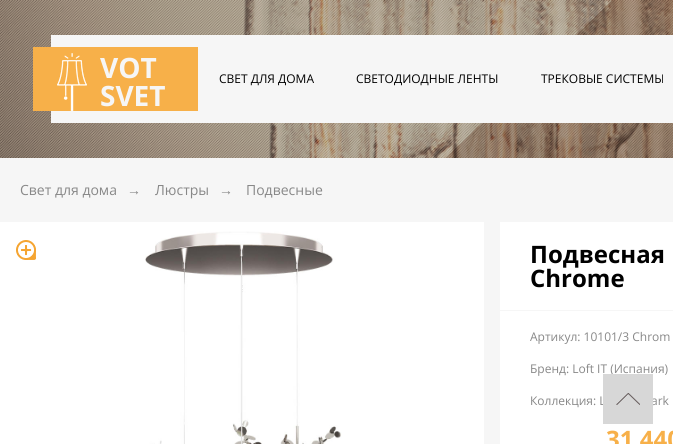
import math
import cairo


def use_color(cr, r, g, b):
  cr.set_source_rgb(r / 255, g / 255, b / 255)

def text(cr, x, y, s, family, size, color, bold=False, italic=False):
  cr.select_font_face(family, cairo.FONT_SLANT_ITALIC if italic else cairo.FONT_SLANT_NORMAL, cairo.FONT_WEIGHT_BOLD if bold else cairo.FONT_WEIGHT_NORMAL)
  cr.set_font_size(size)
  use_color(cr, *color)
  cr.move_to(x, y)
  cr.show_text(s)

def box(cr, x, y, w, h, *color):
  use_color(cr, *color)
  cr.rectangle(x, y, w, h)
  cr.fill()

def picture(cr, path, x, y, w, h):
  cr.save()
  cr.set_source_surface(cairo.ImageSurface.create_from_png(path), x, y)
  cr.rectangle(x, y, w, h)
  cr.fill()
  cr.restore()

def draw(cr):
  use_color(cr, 246, 246, 246)
  cr.paint()
  picture(cr, "img_01.png", 0, 0, 673, 158)
  box(cr, 51, 35, 622, 88, 246, 246, 246)
  box(cr, 33, 47, 165, 64, 247, 176, 73)
  picture(cr, "img_02.png", 57, 53, 30, 58)
  picture(cr, "img_03.png", 0, 222, 484, 222)
  picture(cr, "img_04.png", 16, 240, 20, 20)
  box(cr, 500, 222, 173, 88, 255, 255, 255)
  box(cr, 500, 311, 173, 133, 255, 255, 255)
  text(cr, 100, 78, "VOT", "Open Sans", 28, (246, 246, 246), bold=True)
  text(cr, 100, 106, "SVET", "Open Sans", 28, (246, 246, 246), bold=True)
  text(cr, 219, 83, "СВЕТ ДЛЯ ДОМА", "Open Sans", 12, (0, 0, 0))
  text(cr, 356, 83, "СВЕТОДИОДНЫЕ ЛЕНТЫ", "Open Sans", 12, (0, 0, 0))
  text(cr, 541, 83, "ТРЕКОВЫЕ СИСТЕМЫ", "Open Sans", 12, (0, 0, 0))
  text(cr, 20, 195, "Свет для дома", "Open Sans", 14, (136, 136, 136))
  text(cr, 127, 195, "→", "Liberation Serif", 14, (136, 136, 136))
  text(cr, 155, 195, "Люстры", "Open Sans", 14, (136, 136, 136))
  text(cr, 219, 195, "→", "Liberation Serif", 14, (136, 136, 136))
  text(cr, 246, 195, "Подвесные", "Open Sans", 14, (136, 136, 136))
  text(cr, 530, 263, "Подвесная", "Open Sans", 24, (0, 0, 0), bold=True)
  text(cr, 530, 287, "Chrome", "Open Sans", 24, (0, 0, 0), bold=True)
  text(cr, 530, 341, "Aртикул: 10101/3 Chrom", "Open Sans", 12, (136, 136, 136))
  text(cr, 530, 373, "Бренд: Loft IT (Испания)", "Open Sans", 12, (136, 136, 136))
  text(cr, 530, 405, "Коллекция: L", "Open Sans", 12, (136, 136, 136))
  text(cr, 651, 405, "ark", "Open Sans", 12, (136, 136, 136))
  text(cr, 606, 448, "31 440", "Open Sans", 24, (247, 176, 73), bold=True)
  box(cr, 603, 374, 50, 50, 215, 215, 215)
  picture(cr, "img_05.png", 616, 393, 24, 12)


surface = cairo.ImageSurface(cairo.FORMAT_RGB24, 673, 444)
cr = cairo.Context(surface)
options = cairo.FontOptions()
options.set_hint_metrics(cairo.HINT_METRICS_OFF)
options.set_hint_style(cairo.HINT_STYLE_NONE)
cr.set_font_options(options)
cr.set_miter_limit(4)
draw(cr)
surface.write_to_png("out.png")
